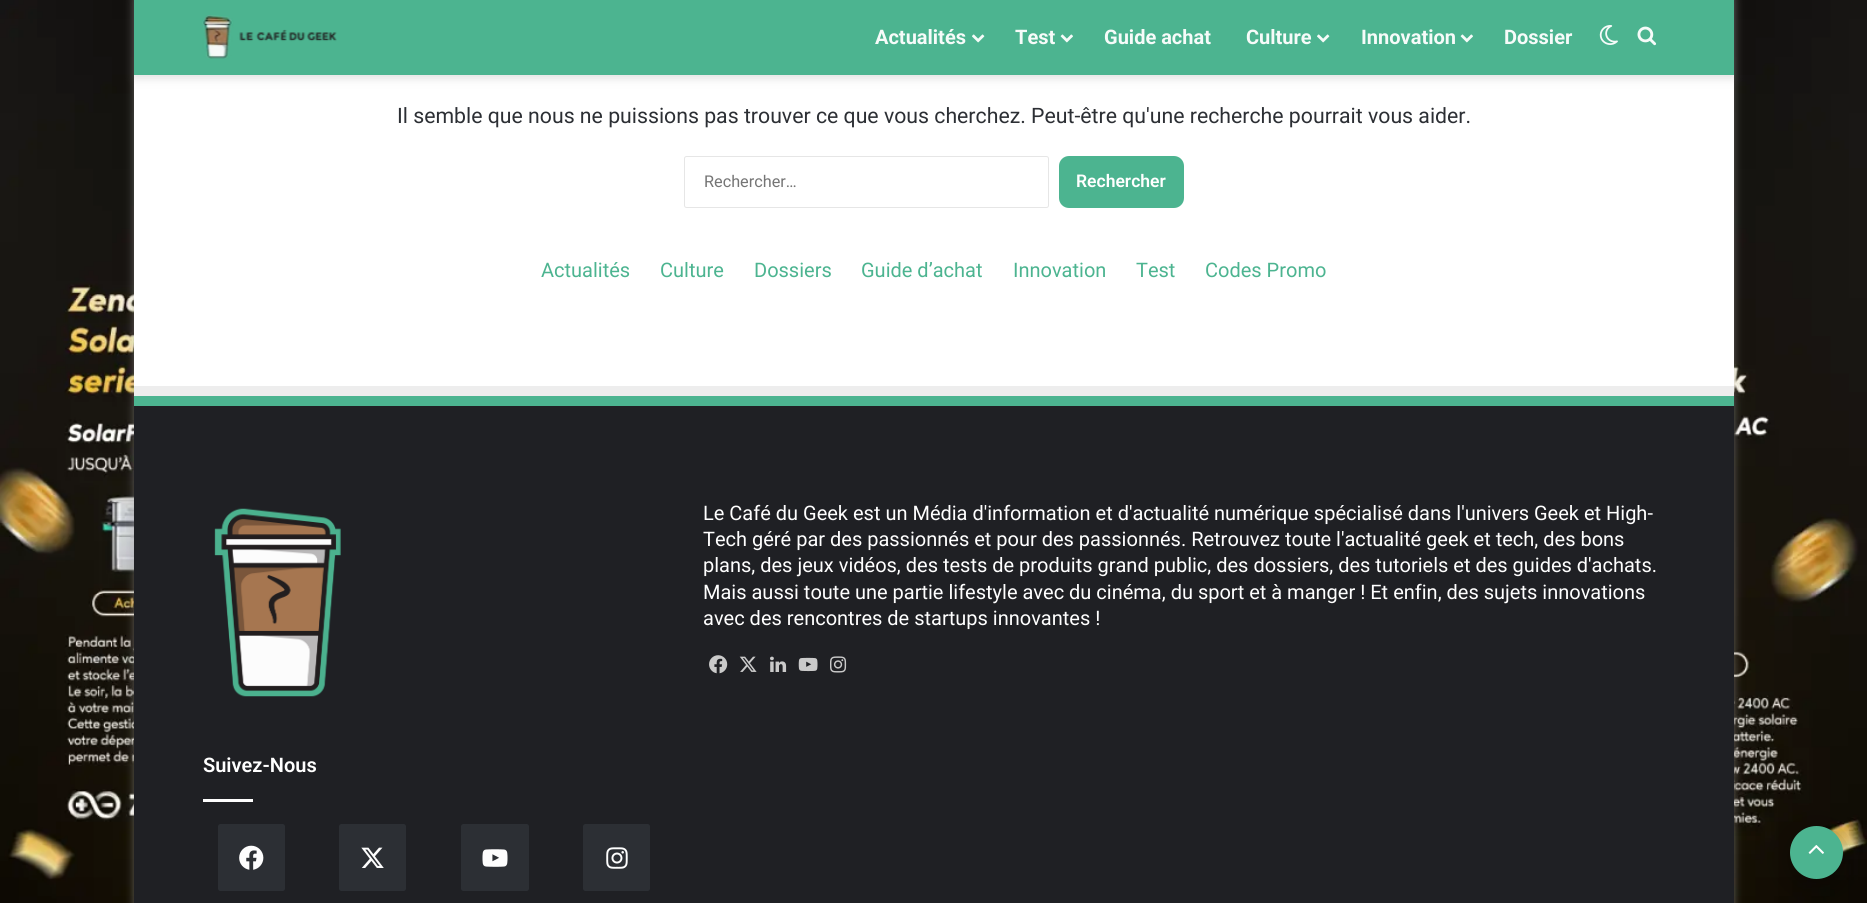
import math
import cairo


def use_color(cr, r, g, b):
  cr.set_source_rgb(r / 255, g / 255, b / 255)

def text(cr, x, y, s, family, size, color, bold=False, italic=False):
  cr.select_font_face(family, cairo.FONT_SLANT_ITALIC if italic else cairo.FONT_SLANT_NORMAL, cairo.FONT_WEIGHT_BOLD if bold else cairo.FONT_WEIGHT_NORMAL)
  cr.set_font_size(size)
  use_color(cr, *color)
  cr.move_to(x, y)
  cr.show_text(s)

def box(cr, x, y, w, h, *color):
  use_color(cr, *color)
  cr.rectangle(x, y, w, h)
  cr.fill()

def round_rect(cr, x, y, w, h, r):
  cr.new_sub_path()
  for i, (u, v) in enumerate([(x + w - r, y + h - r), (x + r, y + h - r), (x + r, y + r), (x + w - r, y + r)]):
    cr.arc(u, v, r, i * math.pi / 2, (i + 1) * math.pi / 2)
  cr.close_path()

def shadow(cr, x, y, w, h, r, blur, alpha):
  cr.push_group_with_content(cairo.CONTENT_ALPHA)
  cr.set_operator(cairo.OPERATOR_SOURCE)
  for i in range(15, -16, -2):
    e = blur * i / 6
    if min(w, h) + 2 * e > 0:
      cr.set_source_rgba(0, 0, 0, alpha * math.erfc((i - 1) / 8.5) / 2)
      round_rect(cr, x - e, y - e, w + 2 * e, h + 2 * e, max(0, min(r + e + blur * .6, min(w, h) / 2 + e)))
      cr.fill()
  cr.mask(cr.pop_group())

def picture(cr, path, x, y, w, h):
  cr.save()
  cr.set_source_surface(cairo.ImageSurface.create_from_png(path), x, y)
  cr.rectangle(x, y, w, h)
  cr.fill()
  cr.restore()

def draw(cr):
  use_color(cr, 255, 255, 255)
  cr.paint()
  picture(cr, "img_01.png", 0, 0, 1867, 903)
  use_color(cr, 171, 171, 171)
  shadow(cr, 134, -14, 1600, 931, 0, 4.5, 0.5)
  box(cr, 134, 75, 1600, 311, 255, 255, 255)
  use_color(cr, 99, 99, 99)
  shadow(cr, 134, 3, 1600, 75, 0, 5, 0.2)
  box(cr, 134, 0, 1600, 75, 76, 180, 144)
  picture(cr, "img_02.png", 202, 15, 135, 44)
  picture(cr, "img_03.png", 972, 34, 13, 9)
  picture(cr, "img_04.png", 1060, 34, 13, 9)
  picture(cr, "img_03.png", 1317, 34, 13, 9)
  picture(cr, "img_04.png", 1460, 34, 13, 9)
  picture(cr, "img_05.png", 1599, 25, 19, 20)
  picture(cr, "img_06.png", 1637, 26, 20, 20)
  round_rect(cr, 684.5, 156.5, 364, 51, 2)
  use_color(cr, 230, 230, 230)
  cr.set_line_width(1)
  cr.stroke()
  use_color(cr, 76, 180, 144)
  round_rect(cr, 1059, 156, 125, 52, 10)
  cr.fill()
  box(cr, 134, 406, 1600, 497, 31, 32, 36)
  use_color(cr, 237, 237, 237)
  cr.new_path()
  cr.move_to(134, 386)
  cr.line_to(134, 396)
  cr.line_to(1734, 396)
  cr.line_to(1734, 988)
  cr.line_to(1734, 386)
  cr.close_path()
  cr.fill()
  box(cr, 134, 396, 1600, 10, 76, 180, 144)
  picture(cr, "img_07.png", 709, 655, 19, 19)
  picture(cr, "img_08.png", 739, 656, 18, 16)
  picture(cr, "img_09.png", 770, 656, 17, 16)
  picture(cr, "img_10.png", 798, 657, 20, 15)
  picture(cr, "img_11.png", 830, 656, 17, 17)
  picture(cr, "img_12.png", 214, 508, 127, 189)
  box(cr, 203, 799, 50, 3, 253, 253, 253)
  use_color(cr, 44, 47, 52)
  round_rect(cr, 218, 824, 67, 67, 2.5)
  cr.fill()
  picture(cr, "img_13.png", 239, 845, 25, 25)
  round_rect(cr, 339, 824, 67, 67, 2.5)
  cr.fill()
  picture(cr, "img_14.png", 361, 847, 23, 21)
  round_rect(cr, 461, 824, 68, 67, 2.5)
  cr.fill()
  picture(cr, "img_15.png", 482, 849, 26, 18)
  round_rect(cr, 583, 824, 67, 67, 2.5)
  cr.fill()
  picture(cr, "img_16.png", 606, 847, 22, 22)
  use_color(cr, 0, 0, 0)
  shadow(cr, 1790, 833, 53, 52, 26, 15.5, 0.3)
  use_color(cr, 76, 180, 144)
  cr.arc(1816.5, 852.5, 26.5, 0, 2 * math.pi)
  cr.fill()
  picture(cr, "img_17.png", 1808, 845, 16, 9)
  text(cr, 875, 44, "Actualités", "Roboto", 20, (246, 251, 249), bold=True)
  text(cr, 1015, 44, "Test", "Roboto", 20, (246, 251, 249), bold=True)
  text(cr, 1104, 44, "Guide achat", "Roboto", 20, (246, 251, 249), bold=True)
  text(cr, 1246, 44, "Culture", "Roboto", 20, (246, 251, 249), bold=True)
  text(cr, 1361, 44, "Innovation", "Roboto", 20, (246, 251, 249), bold=True)
  text(cr, 1504, 44, "Dossier", "Roboto", 20, (246, 251, 249), bold=True)
  text(cr, 397, 123, "Il semble que nous ne puissions pas trouver ce que vous cherchez. Peut-être qu'une recherche pourrait vous aider.", "Roboto", 21.25, (44, 47, 52))
  text(cr, 704, 187, "Rechercher…", "Roboto", 16.25, (117, 117, 117))
  text(cr, 1076, 187, "Rechercher", "Roboto SemiBold", 17.5, (255, 255, 255))
  text(cr, 541, 277, "Actualités", "Roboto", 20, (76, 180, 144))
  text(cr, 660, 277, "Culture", "Roboto", 20, (76, 180, 144))
  text(cr, 754, 277, "Dossiers", "Roboto", 20, (76, 180, 144))
  text(cr, 861, 277, "Guide d’achat", "Roboto", 20, (76, 180, 144))
  text(cr, 1013, 277, "Innovation", "Roboto", 20, (76, 180, 144))
  text(cr, 1136, 277, "Test", "Roboto", 20, (76, 180, 144))
  text(cr, 1205, 277, "Codes Promo", "Roboto", 20, (76, 180, 144))
  text(cr, 703, 520, "Le Café du Geek est un Média d'information et d'actualité numérique spécialisé dans l'univers Geek et High-", "Roboto", 20, (255, 255, 255))
  text(cr, 703, 546, "Tech géré par des passionnés et pour des passionnés. Retrouvez toute l'actualité geek et tech, des bons", "Roboto", 20, (255, 255, 255))
  text(cr, 703, 572, "plans, des jeux vidéos, des tests de produits grand public, des dossiers, des tutoriels et des guides d'achats.", "Roboto", 20, (255, 255, 255))
  text(cr, 703, 599, "Mais aussi toute une partie lifestyle avec du cinéma, du sport et à manger ! Et enfin, des sujets innovations", "Roboto", 20, (255, 255, 255))
  text(cr, 703, 625, "avec des rencontres de startups innovantes !", "Roboto", 20, (255, 255, 255))
  text(cr, 203, 772, "Suivez-Nous", "Roboto SemiBold", 20, (255, 255, 255))


surface = cairo.ImageSurface(cairo.FORMAT_RGB24, 1867, 903)
cr = cairo.Context(surface)
options = cairo.FontOptions()
options.set_hint_metrics(cairo.HINT_METRICS_OFF)
options.set_hint_style(cairo.HINT_STYLE_NONE)
cr.set_font_options(options)
cr.set_miter_limit(4)
draw(cr)
surface.write_to_png("out.png")
